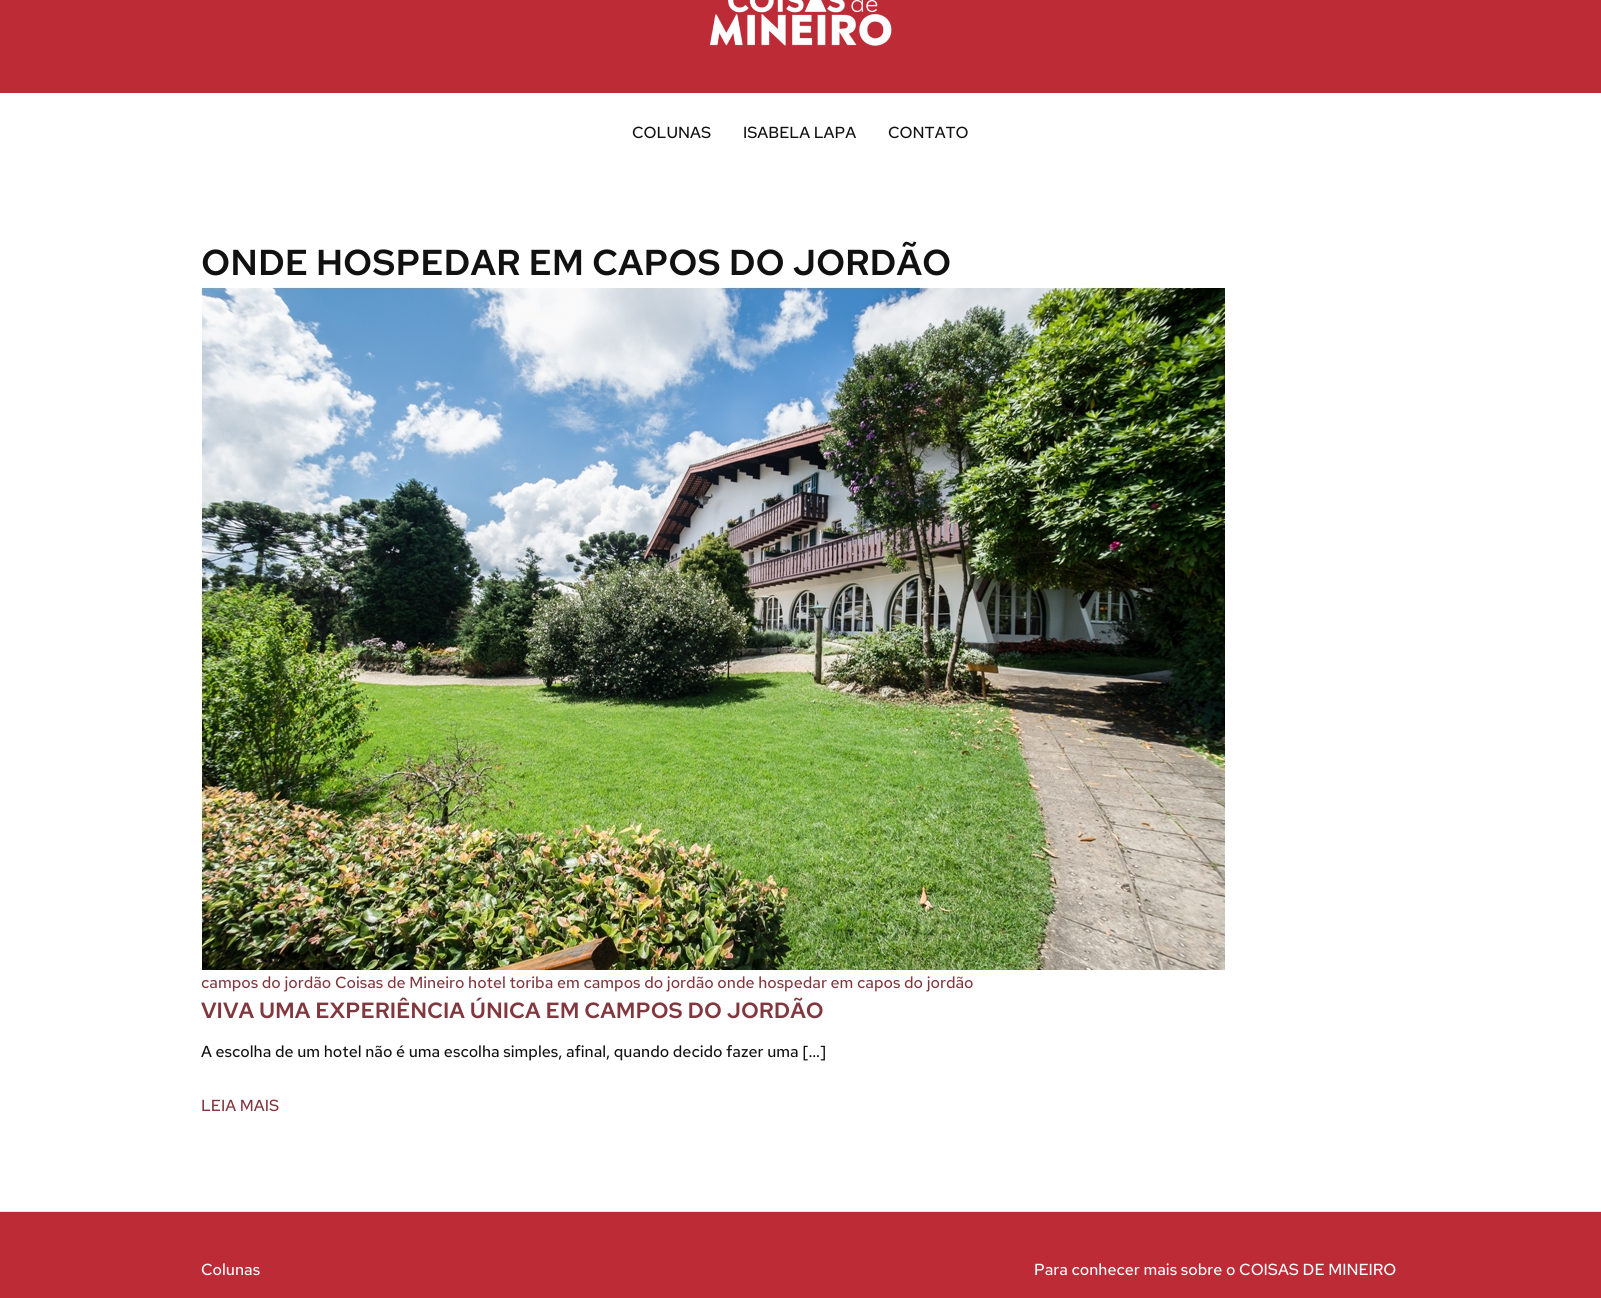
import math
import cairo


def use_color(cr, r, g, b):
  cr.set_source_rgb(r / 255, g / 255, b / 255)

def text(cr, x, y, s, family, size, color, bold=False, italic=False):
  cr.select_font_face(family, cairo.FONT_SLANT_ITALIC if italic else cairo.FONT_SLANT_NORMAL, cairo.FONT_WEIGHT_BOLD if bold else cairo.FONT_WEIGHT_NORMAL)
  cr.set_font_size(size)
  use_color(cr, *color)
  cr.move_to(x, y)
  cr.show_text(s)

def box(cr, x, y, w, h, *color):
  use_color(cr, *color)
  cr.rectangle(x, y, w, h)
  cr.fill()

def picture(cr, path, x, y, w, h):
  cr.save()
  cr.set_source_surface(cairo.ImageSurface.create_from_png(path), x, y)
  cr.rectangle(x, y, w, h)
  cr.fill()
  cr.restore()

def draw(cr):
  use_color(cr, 255, 255, 255)
  cr.paint()
  box(cr, 0, 0, 1601, 93, 189, 43, 55)
  picture(cr, "img_01.png", 709, 0, 183, 46)
  picture(cr, "img_02.png", 201, 287, 1024, 683)
  box(cr, 0, 1212, 1601, 86, 189, 43, 55)
  box(cr, 0, 1211, 1601, 1, 230, 230, 230)
  text(cr, 632, 138, "COLUNAS", "Red Hat Text Medium", 16, (17, 17, 17))
  text(cr, 743, 138, "ISABELA LAPA", "Red Hat Text Medium", 16, (17, 17, 17))
  text(cr, 888, 138, "CONTATO", "Red Hat Text Medium", 16, (17, 17, 17))
  text(cr, 201, 275, "ONDE HOSPEDAR EM CAPOS DO JORDÃO", "Red Hat Text SemiBold", 36, (17, 17, 17))
  text(cr, 201, 988, "campos do jordão Coisas de Mineiro hotel toriba em campos do jordão onde hospedar em capos do jordão", "Red Hat Text Medium", 16, (130, 55, 62))
  text(cr, 201, 1018, "VIVA UMA EXPERIÊNCIA ÚNICA EM CAMPOS DO JORDÃO", "Red Hat Text SemiBold", 22, (130, 55, 62))
  text(cr, 201, 1057, "A escolha de um hotel não é uma escolha simples, afinal, quando decido fazer uma […]", "Red Hat Text Medium", 16, (17, 17, 17))
  text(cr, 201, 1111, "LEIA MAIS", "Red Hat Text Medium", 16, (130, 55, 62))
  text(cr, 201, 1275, "Colunas", "Red Hat Text Medium", 16, (255, 255, 255))
  text(cr, 1034, 1275, "Para conhecer mais sobre o COISAS DE MINEIRO", "Red Hat Text Medium", 16, (255, 255, 255))


surface = cairo.ImageSurface(cairo.FORMAT_RGB24, 1601, 1298)
cr = cairo.Context(surface)
options = cairo.FontOptions()
options.set_hint_metrics(cairo.HINT_METRICS_OFF)
options.set_hint_style(cairo.HINT_STYLE_NONE)
cr.set_font_options(options)
cr.set_miter_limit(4)
draw(cr)
surface.write_to_png("out.png")
